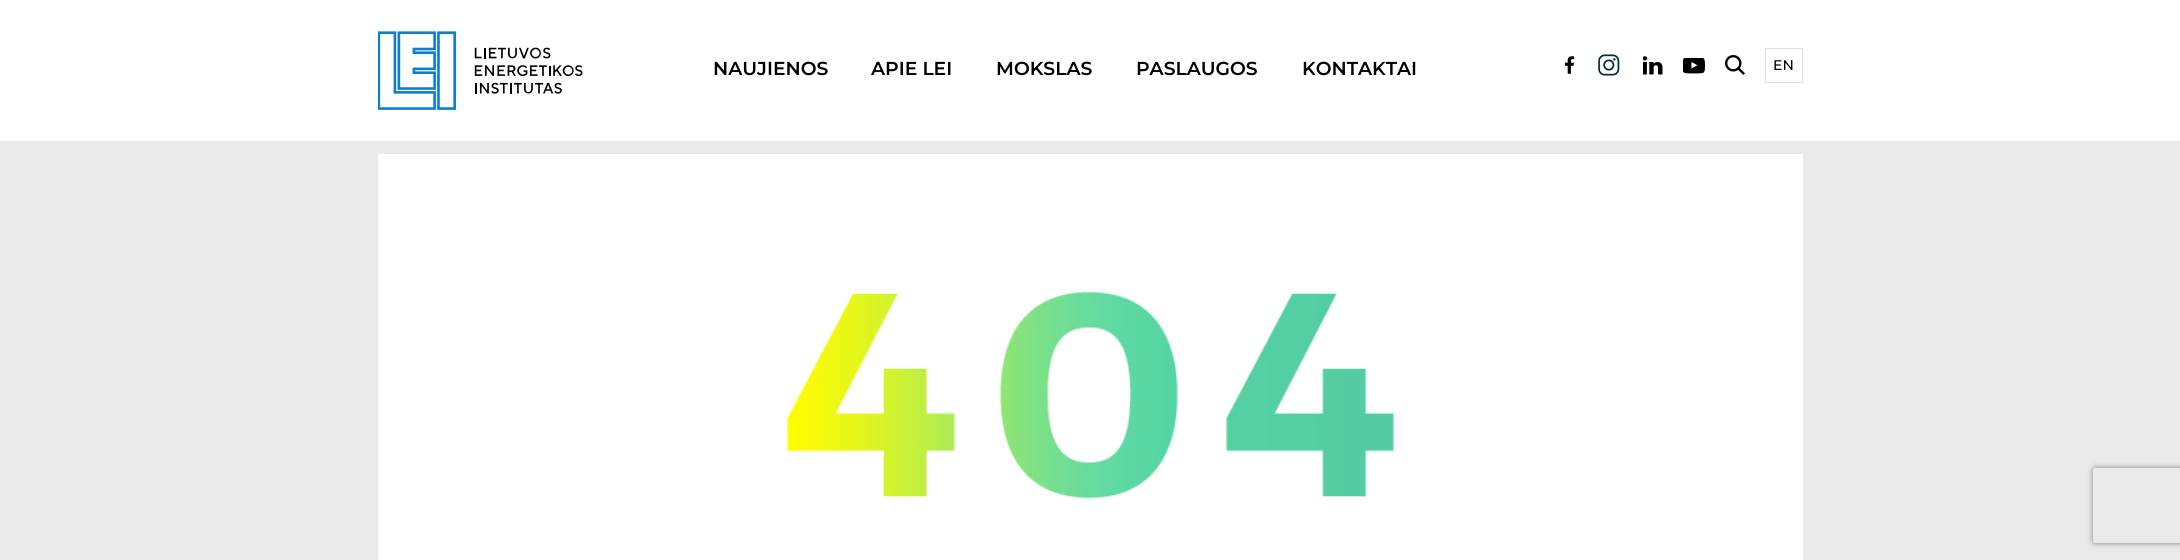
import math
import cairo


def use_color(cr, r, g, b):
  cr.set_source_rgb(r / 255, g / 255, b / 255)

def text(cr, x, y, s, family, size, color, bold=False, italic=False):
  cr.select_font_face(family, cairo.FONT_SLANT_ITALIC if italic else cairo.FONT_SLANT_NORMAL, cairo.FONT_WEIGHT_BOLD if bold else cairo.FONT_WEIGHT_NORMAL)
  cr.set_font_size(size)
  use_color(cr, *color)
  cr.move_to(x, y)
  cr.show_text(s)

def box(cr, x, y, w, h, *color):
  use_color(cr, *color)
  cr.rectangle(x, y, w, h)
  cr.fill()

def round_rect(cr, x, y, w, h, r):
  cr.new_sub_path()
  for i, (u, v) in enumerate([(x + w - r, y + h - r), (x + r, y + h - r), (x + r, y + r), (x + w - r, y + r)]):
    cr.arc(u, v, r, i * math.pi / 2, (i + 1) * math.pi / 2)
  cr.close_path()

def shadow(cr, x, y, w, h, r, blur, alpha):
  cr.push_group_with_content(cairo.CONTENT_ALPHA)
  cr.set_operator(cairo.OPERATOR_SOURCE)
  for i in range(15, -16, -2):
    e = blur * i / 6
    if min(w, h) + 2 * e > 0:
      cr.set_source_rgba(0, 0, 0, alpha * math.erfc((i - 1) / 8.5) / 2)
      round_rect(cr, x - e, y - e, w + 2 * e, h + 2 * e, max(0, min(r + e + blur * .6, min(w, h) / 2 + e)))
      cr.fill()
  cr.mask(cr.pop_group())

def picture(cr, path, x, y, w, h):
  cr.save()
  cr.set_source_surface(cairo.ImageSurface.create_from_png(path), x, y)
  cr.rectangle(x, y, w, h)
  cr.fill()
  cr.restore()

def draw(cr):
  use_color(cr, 234, 234, 234)
  cr.paint()
  box(cr, 0, 0, 2180, 141, 255, 255, 255)
  picture(cr, "img_01.png", 378, 31, 205, 79)
  picture(cr, "img_02.png", 1565, 56, 10, 18)
  picture(cr, "img_03.png", 1598, 54, 22, 22)
  picture(cr, "img_04.png", 1643, 56, 20, 19)
  picture(cr, "img_05.png", 1683, 58, 22, 16)
  picture(cr, "img_06.png", 1725, 55, 20, 20)
  cr.rectangle(1765.5, 48.5, 37, 34)
  use_color(cr, 224, 224, 224)
  cr.set_line_width(1)
  cr.stroke()
  box(cr, 378, 154, 1425, 406, 255, 255, 255)
  picture(cr, "img_07.png", 787, 291, 607, 208)
  cr.save()
  cr.set_fill_rule(cairo.FILL_RULE_EVEN_ODD)
  cr.new_path()
  cr.move_to(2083, 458)
  cr.line_to(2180, 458)
  cr.line_to(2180, 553)
  cr.line_to(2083, 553)
  cr.close_path()
  cr.move_to(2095.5, 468)
  cr.line_to(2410.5, 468)
  cr.curve_to(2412, 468, 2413, 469, 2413, 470.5)
  cr.line_to(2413, 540.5)
  cr.curve_to(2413, 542, 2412, 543, 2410.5, 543)
  cr.line_to(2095.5, 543)
  cr.curve_to(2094, 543, 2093, 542, 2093, 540.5)
  cr.line_to(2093, 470.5)
  cr.curve_to(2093, 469, 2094, 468, 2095.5, 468)
  cr.close_path()
  cr.clip()
  use_color(cr, 128, 128, 128)
  shadow(cr, 2093, 468, 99, 75, 2.5, 3, 1)
  cr.restore()
  text(cr, 713, 75, "NAUJIENOS", "Montserrat SemiBold", 18.75, (0, 0, 0))
  text(cr, 871, 75, "APIE LEI", "Montserrat SemiBold", 18.75, (0, 0, 0))
  text(cr, 996, 75, "MOKSLAS", "Montserrat SemiBold", 18.75, (0, 0, 0))
  text(cr, 1136, 75, "PASLAUGOS", "Montserrat SemiBold", 18.75, (0, 0, 0))
  text(cr, 1302, 75, "KONTAKTAI", "Montserrat SemiBold", 18.75, (0, 0, 0))
  text(cr, 1773, 70, "EN", "Montserrat Medium", 14, (0, 0, 0))


surface = cairo.ImageSurface(cairo.FORMAT_RGB24, 2180, 560)
cr = cairo.Context(surface)
options = cairo.FontOptions()
options.set_hint_metrics(cairo.HINT_METRICS_OFF)
options.set_hint_style(cairo.HINT_STYLE_NONE)
cr.set_font_options(options)
cr.set_miter_limit(4)
draw(cr)
surface.write_to_png("out.png")
